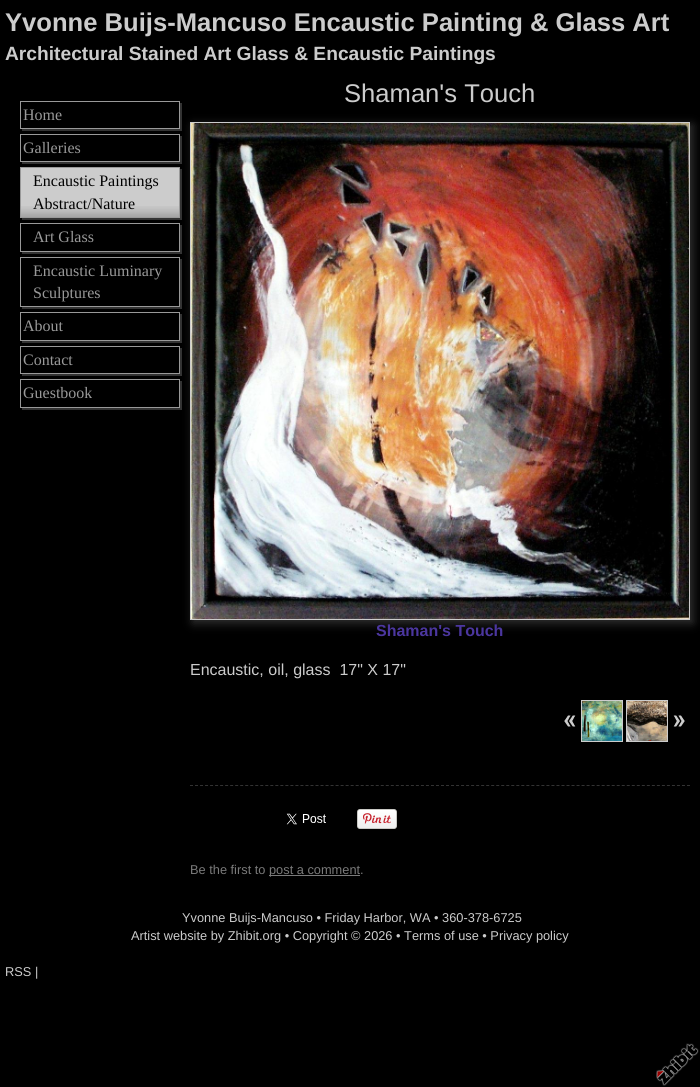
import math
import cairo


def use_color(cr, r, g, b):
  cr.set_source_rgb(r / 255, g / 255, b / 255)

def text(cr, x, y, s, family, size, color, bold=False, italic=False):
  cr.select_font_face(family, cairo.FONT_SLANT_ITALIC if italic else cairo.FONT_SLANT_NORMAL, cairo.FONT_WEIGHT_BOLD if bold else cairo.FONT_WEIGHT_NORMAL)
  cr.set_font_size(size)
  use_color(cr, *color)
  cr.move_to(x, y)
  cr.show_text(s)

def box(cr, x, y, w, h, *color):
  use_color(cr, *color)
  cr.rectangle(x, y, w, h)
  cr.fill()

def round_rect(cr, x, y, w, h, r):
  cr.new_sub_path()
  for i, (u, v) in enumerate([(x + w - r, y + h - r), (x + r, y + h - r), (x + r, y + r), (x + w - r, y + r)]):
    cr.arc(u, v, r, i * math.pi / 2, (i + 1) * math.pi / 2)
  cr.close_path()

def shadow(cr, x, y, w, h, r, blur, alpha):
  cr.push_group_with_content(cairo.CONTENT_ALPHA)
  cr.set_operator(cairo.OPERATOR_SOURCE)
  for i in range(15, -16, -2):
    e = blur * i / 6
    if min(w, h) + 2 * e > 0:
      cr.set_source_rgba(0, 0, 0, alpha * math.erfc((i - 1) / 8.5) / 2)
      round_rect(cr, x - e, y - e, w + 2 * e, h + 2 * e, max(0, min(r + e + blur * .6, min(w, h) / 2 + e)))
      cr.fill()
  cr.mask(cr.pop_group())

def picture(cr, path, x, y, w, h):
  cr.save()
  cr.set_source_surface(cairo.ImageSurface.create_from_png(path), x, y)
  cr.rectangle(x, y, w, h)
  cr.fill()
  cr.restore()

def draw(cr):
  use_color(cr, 0, 0, 0)
  cr.paint()
  use_color(cr, 51, 51, 51)
  cr.new_path()
  cr.move_to(22, 129)
  cr.line_to(22, 131)
  cr.line_to(182, 131)
  cr.line_to(182, 103)
  cr.line_to(180, 103)
  cr.line_to(180, 129)
  cr.close_path()
  cr.fill()
  cr.rectangle(20.5, 101.5, 159, 27)
  use_color(cr, 153, 153, 153)
  cr.set_line_width(1)
  cr.stroke()
  use_color(cr, 51, 51, 51)
  cr.new_path()
  cr.move_to(22, 162)
  cr.line_to(22, 164)
  cr.line_to(182, 164)
  cr.line_to(182, 136)
  cr.line_to(180, 136)
  cr.line_to(180, 162)
  cr.close_path()
  cr.fill()
  cr.rectangle(20.5, 134.5, 159, 27)
  use_color(cr, 153, 153, 153)
  cr.stroke()
  use_color(cr, 51, 51, 51)
  cr.new_path()
  cr.move_to(22, 218)
  cr.line_to(22, 220)
  cr.line_to(182, 220)
  cr.line_to(182, 169)
  cr.line_to(180, 169)
  cr.line_to(180, 218)
  cr.close_path()
  cr.fill()
  box(cr, 21, 168, 158, 49, 204, 204, 204)
  picture(cr, "img_01.png", 21, 206, 158, 11)
  cr.rectangle(20.5, 167.5, 159, 50)
  use_color(cr, 153, 153, 153)
  cr.stroke()
  use_color(cr, 51, 51, 51)
  cr.new_path()
  cr.move_to(22, 252)
  cr.line_to(22, 254)
  cr.line_to(182, 254)
  cr.line_to(182, 225)
  cr.line_to(180, 225)
  cr.line_to(180, 252)
  cr.close_path()
  cr.fill()
  cr.rectangle(20.5, 223.5, 159, 28)
  use_color(cr, 153, 153, 153)
  cr.stroke()
  use_color(cr, 51, 51, 51)
  cr.new_path()
  cr.move_to(22, 307)
  cr.line_to(22, 309)
  cr.line_to(182, 309)
  cr.line_to(182, 259)
  cr.line_to(180, 259)
  cr.line_to(180, 307)
  cr.close_path()
  cr.fill()
  cr.rectangle(20.5, 257.5, 159, 49)
  use_color(cr, 153, 153, 153)
  cr.stroke()
  use_color(cr, 51, 51, 51)
  cr.new_path()
  cr.move_to(22, 341)
  cr.line_to(22, 343)
  cr.line_to(182, 343)
  cr.line_to(182, 314)
  cr.line_to(180, 314)
  cr.line_to(180, 341)
  cr.close_path()
  cr.fill()
  cr.rectangle(20.5, 312.5, 159, 28)
  use_color(cr, 153, 153, 153)
  cr.stroke()
  use_color(cr, 51, 51, 51)
  cr.new_path()
  cr.move_to(22, 374)
  cr.line_to(22, 376)
  cr.line_to(182, 376)
  cr.line_to(182, 348)
  cr.line_to(180, 348)
  cr.line_to(180, 374)
  cr.close_path()
  cr.fill()
  cr.rectangle(20.5, 346.5, 159, 27)
  use_color(cr, 153, 153, 153)
  cr.stroke()
  use_color(cr, 51, 51, 51)
  cr.new_path()
  cr.move_to(22, 408)
  cr.line_to(22, 410)
  cr.line_to(182, 410)
  cr.line_to(182, 381)
  cr.line_to(180, 381)
  cr.line_to(180, 408)
  cr.close_path()
  cr.fill()
  cr.rectangle(20.5, 379.5, 159, 28)
  use_color(cr, 153, 153, 153)
  cr.stroke()
  use_color(cr, 51, 51, 51)
  shadow(cr, 193, 125, 500, 498, 0, 5, 1)
  cr.rectangle(190.5, 122.5, 499, 497)
  use_color(cr, 204, 204, 204)
  cr.stroke()
  picture(cr, "img_02.png", 191, 123, 498, 496)
  picture(cr, "img_03.png", 564, 715, 12, 12)
  cr.rectangle(581.5, 700.5, 41, 41)
  cr.stroke()
  picture(cr, "img_04.png", 582, 701, 40, 40)
  cr.rectangle(626.5, 700.5, 41, 41)
  cr.stroke()
  picture(cr, "img_05.png", 627, 701, 40, 40)
  picture(cr, "img_06.png", 673, 715, 12, 12)
  cr.new_path()
  cr.move_to(190, 785.5)
  cr.line_to(690, 785.5)
  use_color(cr, 51, 51, 51)
  cr.set_dash([3, 2.02])
  cr.stroke()
  picture(cr, "img_07.png", 286, 813, 40, 12)
  picture(cr, "img_08.png", 357, 809, 40, 20)
  box(cr, 269, 875, 91, 1, 122, 122, 122)
  picture(cr, "img_09.png", 656, 1043, 43, 43)
  text(cr, 5, 31, "Yvonne Buijs-Mancuso Encaustic Painting & Glass Art", "Liberation Sans", 25.6, (204, 204, 204), bold=True)
  text(cr, 5, 60, "Architectural Stained Art Glass & Encaustic Paintings", "Liberation Sans", 19.2, (204, 204, 204), bold=True)
  text(cr, 23, 120, "Home", "Liberation Serif", 16, (153, 153, 153))
  text(cr, 23, 153, "Galleries", "Liberation Serif", 16, (153, 153, 153))
  text(cr, 33, 186, "Encaustic Paintings", "Liberation Serif", 16, (0, 0, 0))
  text(cr, 33, 209, "Abstract/Nature", "Liberation Serif", 16, (0, 0, 0))
  text(cr, 33, 242, "Art Glass", "Liberation Serif", 16, (153, 153, 153))
  text(cr, 33, 276, "Encaustic Luminary", "Liberation Serif", 16, (153, 153, 153))
  text(cr, 33, 298, "Sculptures", "Liberation Serif", 16, (153, 153, 153))
  text(cr, 23, 331, "About", "Liberation Serif", 16, (153, 153, 153))
  text(cr, 23, 365, "Contact", "Liberation Serif", 16, (153, 153, 153))
  text(cr, 23, 398, "Guestbook", "Liberation Serif", 16, (153, 153, 153))
  text(cr, 344, 102, "Shaman's Touch", "Liberation Sans", 25.6, (204, 204, 204))
  text(cr, 376, 636, "Shaman's Touch", "Liberation Sans", 16, (75, 54, 159), bold=True)
  text(cr, 190, 675, "Encaustic, oil, glass  17\" X 17\"", "Liberation Sans", 16, (204, 204, 204))
  text(cr, 190, 874, "Be the first to", "Liberation Sans", 12.8, (122, 122, 122))
  text(cr, 269, 874, "post a comment.", "Liberation Sans", 12.8, (122, 122, 122))
  text(cr, 182, 922, "Yvonne Buijs-Mancuso • Friday Harbor, WA • 360-378-6725", "Liberation Sans", 12.8, (204, 204, 204))
  text(cr, 131, 940, "Artist website by Zhibit.org • Copyright © 2026 • Terms of use • Privacy policy", "Liberation Sans", 12.8, (204, 204, 204))
  text(cr, 5, 976, "RSS |", "Liberation Sans", 12.8, (204, 204, 204))


surface = cairo.ImageSurface(cairo.FORMAT_RGB24, 700, 1087)
cr = cairo.Context(surface)
options = cairo.FontOptions()
options.set_hint_metrics(cairo.HINT_METRICS_OFF)
options.set_hint_style(cairo.HINT_STYLE_NONE)
cr.set_font_options(options)
cr.set_miter_limit(4)
draw(cr)
surface.write_to_png("out.png")
